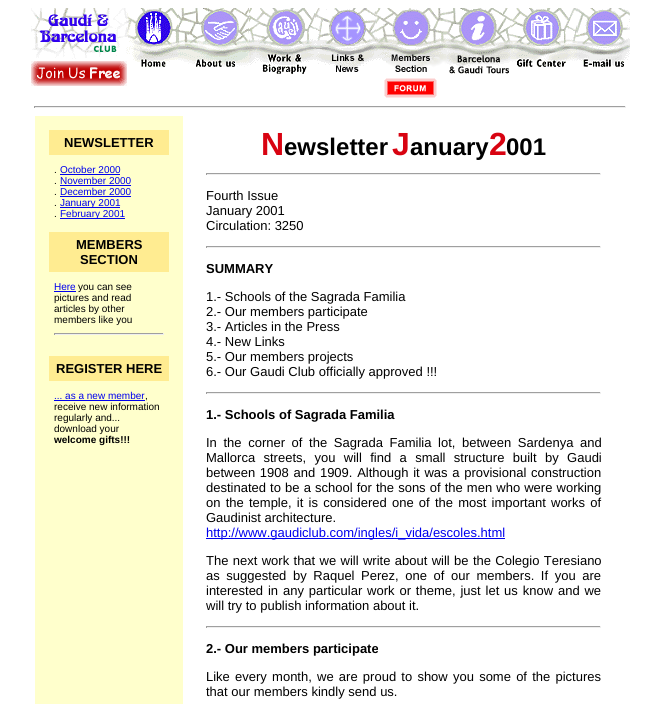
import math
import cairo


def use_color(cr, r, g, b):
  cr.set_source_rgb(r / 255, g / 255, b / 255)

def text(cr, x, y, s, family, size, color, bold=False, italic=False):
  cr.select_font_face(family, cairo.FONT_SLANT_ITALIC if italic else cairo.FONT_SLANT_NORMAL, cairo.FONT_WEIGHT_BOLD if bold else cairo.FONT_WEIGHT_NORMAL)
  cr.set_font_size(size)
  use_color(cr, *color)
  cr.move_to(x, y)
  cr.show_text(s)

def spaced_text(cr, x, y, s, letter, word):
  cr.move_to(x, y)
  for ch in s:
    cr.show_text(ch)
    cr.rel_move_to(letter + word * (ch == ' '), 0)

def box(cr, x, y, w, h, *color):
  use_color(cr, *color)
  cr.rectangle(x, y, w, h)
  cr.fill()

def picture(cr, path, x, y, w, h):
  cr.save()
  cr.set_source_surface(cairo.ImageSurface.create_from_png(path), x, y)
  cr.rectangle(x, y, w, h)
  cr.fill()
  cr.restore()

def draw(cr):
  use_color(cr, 255, 255, 255)
  cr.paint()
  picture(cr, "img_01.png", 31, 8, 96, 51)
  picture(cr, "img_02.png", 31, 61, 96, 25)
  picture(cr, "img_03.png", 127, 8, 51, 59)
  picture(cr, "img_04.png", 178, 8, 71, 59)
  picture(cr, "img_05.png", 249, 8, 66, 66)
  picture(cr, "img_06.png", 315, 8, 61, 64)
  picture(cr, "img_07.png", 376, 8, 71, 90)
  picture(cr, "img_08.png", 447, 8, 64, 66)
  picture(cr, "img_09.png", 511, 8, 66, 59)
  picture(cr, "img_10.png", 577, 8, 53, 59)
  box(cr, 34, 106, 592, 1, 159, 159, 159)
  box(cr, 625, 106, 1, 2, 238, 238, 238)
  box(cr, 34, 107, 592, 1, 238, 238, 238)
  box(cr, 34, 106, 1, 2, 159, 159, 159)
  box(cr, 35, 116, 148, 588, 255, 255, 204)
  box(cr, 49, 130, 120, 25, 255, 236, 145)
  box(cr, 60, 174, 60, 1, 0, 0, 238)
  box(cr, 60, 185, 71, 1, 0, 0, 238)
  box(cr, 60, 196, 71, 1, 0, 0, 238)
  box(cr, 60, 207, 60, 1, 0, 0, 238)
  box(cr, 60, 218, 65, 1, 0, 0, 238)
  box(cr, 49, 232, 120, 40, 255, 236, 145)
  box(cr, 54, 291, 22, 1, 0, 0, 238)
  box(cr, 54, 333, 110, 1, 159, 159, 159)
  box(cr, 163, 333, 1, 2, 238, 238, 238)
  box(cr, 54, 334, 110, 1, 238, 238, 238)
  box(cr, 54, 333, 1, 2, 159, 159, 159)
  box(cr, 49, 356, 120, 25, 255, 236, 145)
  box(cr, 54, 400, 91, 1, 0, 0, 238)
  box(cr, 206, 173, 395, 1, 159, 159, 159)
  box(cr, 600, 173, 1, 2, 238, 238, 238)
  box(cr, 206, 174, 395, 1, 238, 238, 238)
  box(cr, 206, 173, 1, 2, 159, 159, 159)
  box(cr, 206, 246, 395, 1, 159, 159, 159)
  box(cr, 600, 246, 1, 2, 238, 238, 238)
  box(cr, 206, 247, 395, 1, 238, 238, 238)
  box(cr, 206, 246, 1, 2, 159, 159, 159)
  box(cr, 206, 392, 395, 1, 159, 159, 159)
  box(cr, 600, 392, 1, 2, 238, 238, 238)
  box(cr, 206, 393, 395, 1, 238, 238, 238)
  box(cr, 206, 392, 1, 2, 159, 159, 159)
  box(cr, 206, 538, 299, 1, 0, 0, 238)
  box(cr, 206, 626, 395, 1, 159, 159, 159)
  box(cr, 600, 626, 1, 2, 238, 238, 238)
  box(cr, 206, 627, 395, 1, 238, 238, 238)
  box(cr, 206, 626, 1, 2, 159, 159, 159)
  text(cr, 64, 147, "NEWSLETTER", "Liberation Sans", 13, (0, 0, 0), bold=True)
  text(cr, 54, 173, ".", "Liberation Sans", 10, (0, 0, 0))
  text(cr, 60, 173, "October 2000", "Liberation Sans", 10, (0, 0, 238))
  text(cr, 54, 184, ".", "Liberation Sans", 10, (0, 0, 0))
  text(cr, 60, 184, "November 2000", "Liberation Sans", 10, (0, 0, 238))
  text(cr, 54, 195, ".", "Liberation Sans", 10, (0, 0, 0))
  text(cr, 60, 195, "December 2000", "Liberation Sans", 10, (0, 0, 238))
  text(cr, 54, 206, ".", "Liberation Sans", 10, (0, 0, 0))
  text(cr, 60, 206, "January 2001", "Liberation Sans", 10, (0, 0, 238))
  text(cr, 54, 217, ".", "Liberation Sans", 10, (0, 0, 0))
  text(cr, 60, 217, "February 2001", "Liberation Sans", 10, (0, 0, 238))
  text(cr, 76, 249, "MEMBERS", "Liberation Sans", 13, (0, 0, 0), bold=True)
  text(cr, 80, 264, "SECTION", "Liberation Sans", 13, (0, 0, 0), bold=True)
  text(cr, 54, 290, "Here", "Liberation Sans", 10, (0, 0, 238))
  text(cr, 78, 290, "you can see", "Liberation Sans", 10, (0, 0, 0))
  text(cr, 54, 301, "pictures and read", "Liberation Sans", 10, (0, 0, 0))
  text(cr, 54, 312, "articles by other", "Liberation Sans", 10, (0, 0, 0))
  text(cr, 54, 323, "members like you", "Liberation Sans", 10, (0, 0, 0))
  text(cr, 56, 373, "REGISTER HERE", "Liberation Sans", 13, (0, 0, 0), bold=True)
  text(cr, 54, 399, "... as a new member", "Liberation Sans", 10, (0, 0, 238))
  text(cr, 145, 399, ",", "Liberation Sans", 10, (0, 0, 0))
  text(cr, 54, 410, "receive new information", "Liberation Sans", 10, (0, 0, 0))
  text(cr, 54, 421, "regularly and...", "Liberation Sans", 10, (0, 0, 0))
  text(cr, 54, 432, "download your", "Liberation Sans", 10, (0, 0, 0))
  text(cr, 54, 443, "welcome gifts!!!", "Liberation Sans", 10, (0, 0, 0), bold=True)
  text(cr, 261, 155, "N", "Liberation Sans", 32, (216, 3, 17), bold=True)
  text(cr, 284, 155, "ewsletter", "Liberation Sans", 24, (0, 0, 0), bold=True)
  text(cr, 392, 155, "J", "Liberation Sans", 32, (216, 3, 17), bold=True)
  text(cr, 410, 155, "anuary", "Liberation Sans", 24, (0, 0, 0), bold=True)
  text(cr, 489, 155, "2", "Liberation Sans", 32, (216, 3, 17), bold=True)
  text(cr, 506, 155, "001", "Liberation Sans", 24, (0, 0, 0), bold=True)
  text(cr, 206, 200, "Fourth Issue", "Liberation Sans", 13, (0, 0, 0))
  text(cr, 206, 215, "January 2001", "Liberation Sans", 13, (0, 0, 0))
  text(cr, 206, 230, "Circulation: 3250", "Liberation Sans", 13, (0, 0, 0))
  text(cr, 206, 273, "SUMMARY", "Liberation Sans", 13, (0, 0, 0), bold=True)
  text(cr, 206, 301, "1.- Schools of the Sagrada Familia", "Liberation Sans", 13, (0, 0, 0))
  text(cr, 206, 316, "2.- Our members participate", "Liberation Sans", 13, (0, 0, 0))
  text(cr, 206, 331, "3.- Articles in the Press", "Liberation Sans", 13, (0, 0, 0))
  text(cr, 206, 346, "4.- New Links", "Liberation Sans", 13, (0, 0, 0))
  text(cr, 206, 361, "5.- Our members projects", "Liberation Sans", 13, (0, 0, 0))
  text(cr, 206, 376, "6.- Our Gaudi Club officially approved !!!", "Liberation Sans", 13, (0, 0, 0))
  text(cr, 206, 419, "1.- Schools of Sagrada Familia", "Liberation Sans", 13, (0, 0, 0), bold=True)
  cr.select_font_face("Liberation Sans")
  spaced_text(cr, 206, 447, "In the corner of the Sagrada Familia lot, between Sardenya and", 0, 3)
  spaced_text(cr, 206, 462, "Mallorca streets, you will find a small structure built by Gaudi", 0, 4.75)
  spaced_text(cr, 206, 477, "between 1908 and 1909. Although it was a provisional construction", 0, 1.1)
  spaced_text(cr, 206, 492, "destinated to be a school for the sons of the men who were working", 0, 0.5)
  spaced_text(cr, 206, 507, "on the temple, it is considered one of the most important works of", 0, 1.6)
  text(cr, 206, 522, "Gaudinist architecture.", "Liberation Sans", 13, (0, 0, 0))
  text(cr, 206, 537, "http://www.gaudiclub.com/ingles/i_vida/escoles.html", "Liberation Sans", 13, (0, 0, 238))
  use_color(cr, 0, 0, 0)
  spaced_text(cr, 206, 565, "The next work that we will write about will be the Colegio Teresiano", 0, 0.75)
  spaced_text(cr, 206, 580, "as suggested by Raquel Perez, one of our members. If you are", 0, 3)
  spaced_text(cr, 206, 595, "interested in any particular work or theme, just let us know and we", 0, 1.25)
  text(cr, 206, 610, "will try to publish information about it.", "Liberation Sans", 13, (0, 0, 0))
  text(cr, 206, 653, "2.- Our members participate", "Liberation Sans", 13, (0, 0, 0), bold=True)
  cr.select_font_face("Liberation Sans")
  spaced_text(cr, 206, 681, "Like every month, we are proud to show you some of the pictures", 0, 1.6)
  text(cr, 206, 696, "that our members kindly send us.", "Liberation Sans", 13, (0, 0, 0))


surface = cairo.ImageSurface(cairo.FORMAT_RGB24, 660, 704)
cr = cairo.Context(surface)
options = cairo.FontOptions()
options.set_hint_metrics(cairo.HINT_METRICS_OFF)
options.set_hint_style(cairo.HINT_STYLE_NONE)
cr.set_font_options(options)
cr.set_miter_limit(4)
draw(cr)
surface.write_to_png("out.png")
